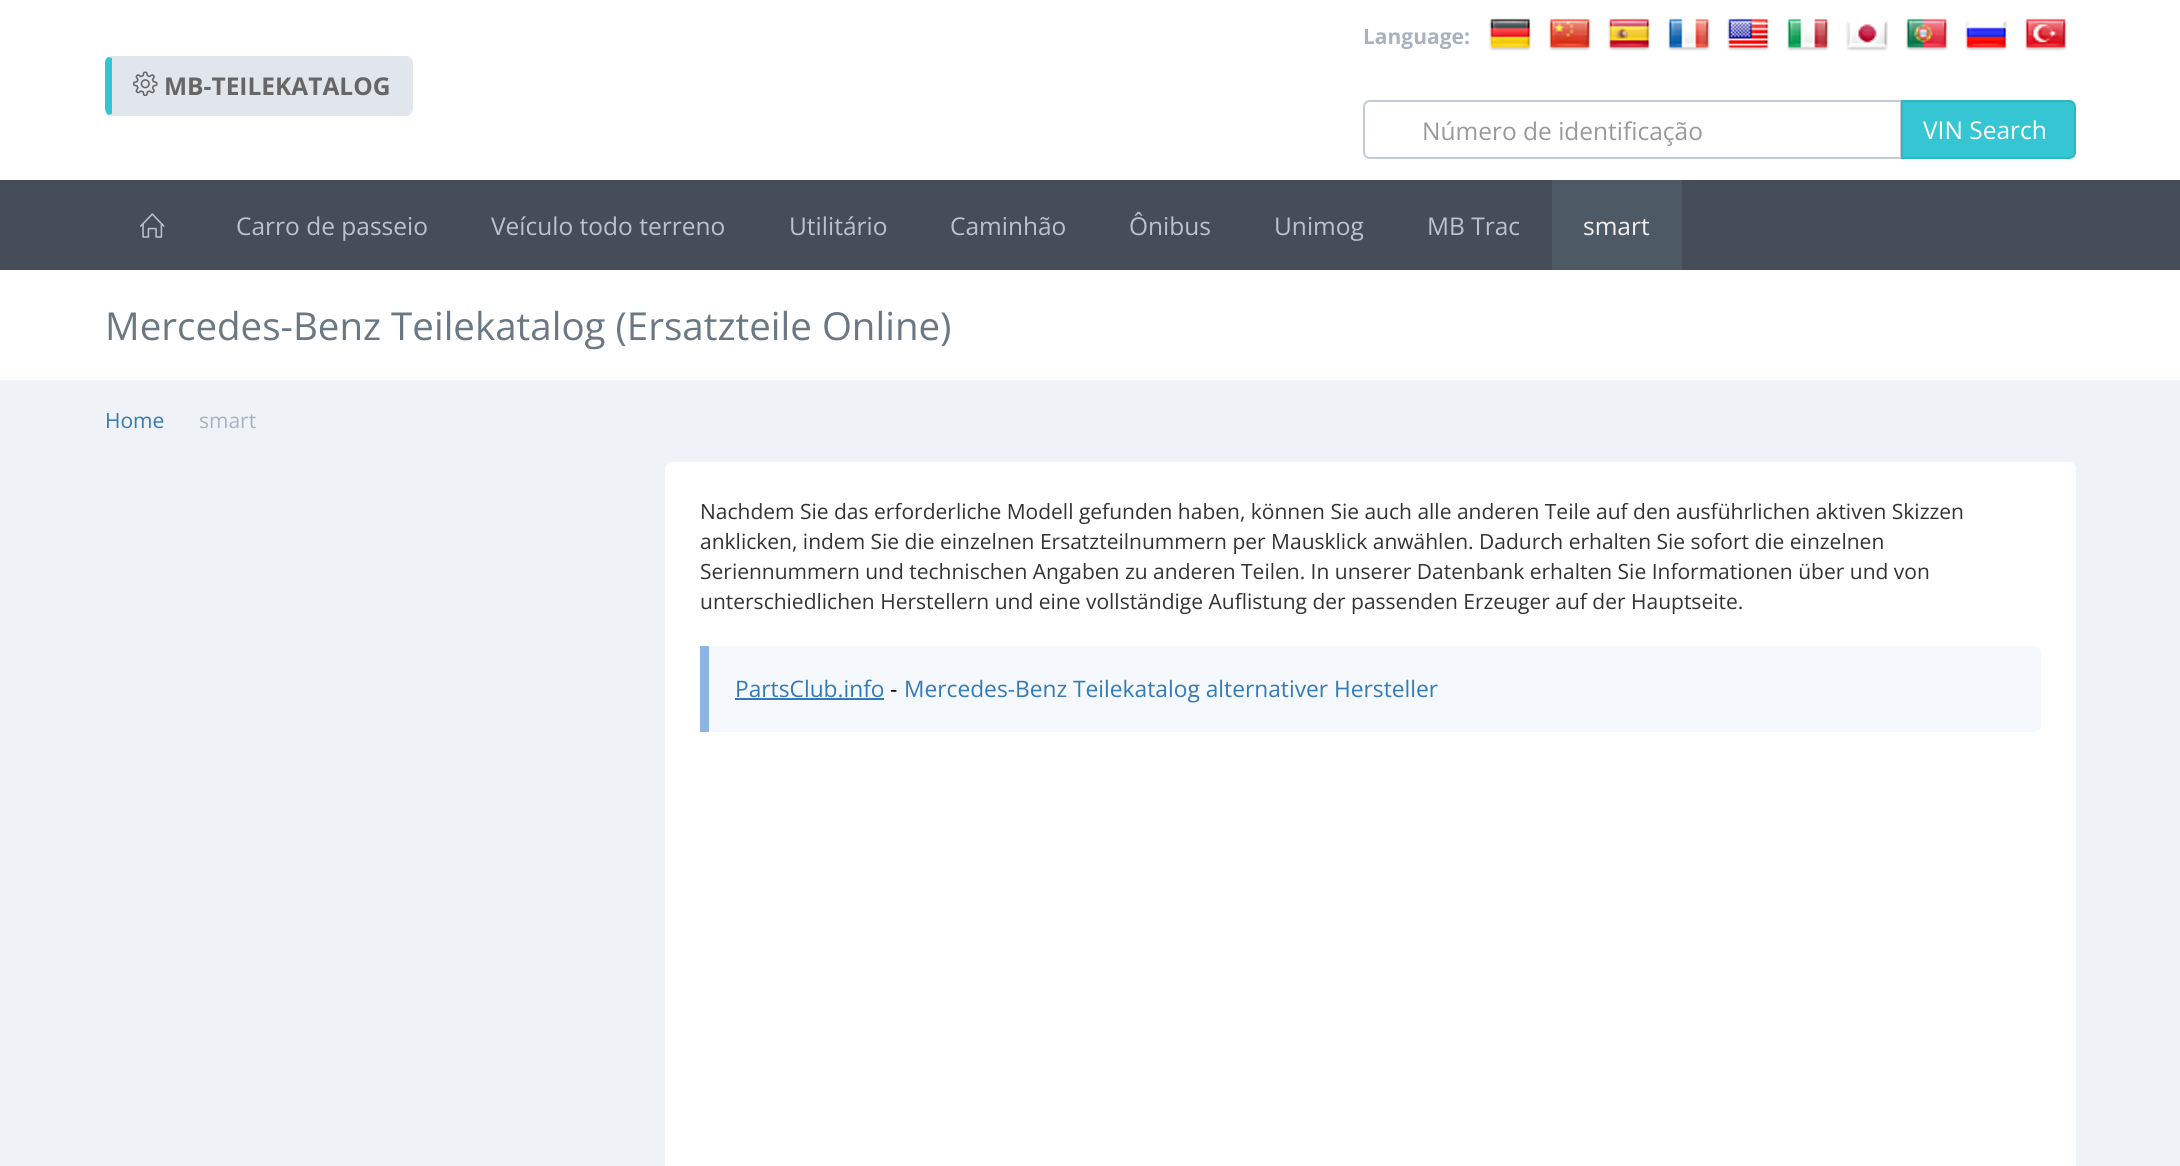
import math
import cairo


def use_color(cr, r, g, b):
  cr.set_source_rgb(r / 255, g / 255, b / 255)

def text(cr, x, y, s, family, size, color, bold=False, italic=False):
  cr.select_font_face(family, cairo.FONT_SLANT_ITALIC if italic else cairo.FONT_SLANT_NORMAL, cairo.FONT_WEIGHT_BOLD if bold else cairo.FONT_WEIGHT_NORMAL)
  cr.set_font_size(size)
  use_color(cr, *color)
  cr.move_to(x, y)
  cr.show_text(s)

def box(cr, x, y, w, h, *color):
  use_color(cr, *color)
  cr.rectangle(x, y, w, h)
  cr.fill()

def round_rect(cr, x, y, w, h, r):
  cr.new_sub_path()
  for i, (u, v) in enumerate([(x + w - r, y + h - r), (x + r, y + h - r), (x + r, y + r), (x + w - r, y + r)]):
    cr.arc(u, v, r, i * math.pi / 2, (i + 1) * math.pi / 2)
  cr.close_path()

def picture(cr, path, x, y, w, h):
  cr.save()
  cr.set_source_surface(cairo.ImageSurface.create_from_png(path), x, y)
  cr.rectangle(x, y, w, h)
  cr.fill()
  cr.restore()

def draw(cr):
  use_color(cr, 255, 255, 255)
  cr.paint()
  use_color(cr, 225, 229, 236)
  cr.new_path()
  cr.move_to(112, 58)
  cr.line_to(406, 58)
  cr.curve_to(409, 58, 411, 60, 411, 63)
  cr.line_to(411, 108)
  cr.curve_to(411, 111, 409, 114, 406, 114)
  cr.line_to(112, 114)
  cr.close_path()
  cr.fill()
  cr.new_path()
  cr.move_to(112, 56)
  cr.line_to(108, 57)
  cr.line_to(113, 58)
  cr.line_to(406, 58)
  cr.curve_to(408, 58, 409, 58, 410, 59)
  cr.line_to(411, 58)
  cr.curve_to(410, 57, 408, 56, 406, 56)
  cr.close_path()
  cr.fill()
  cr.new_path()
  cr.move_to(413, 108)
  cr.line_to(413, 63)
  cr.curve_to(413, 61, 412, 59, 411, 58)
  cr.line_to(410, 59)
  cr.curve_to(410, 60, 411, 62, 411, 63)
  cr.line_to(411, 108)
  cr.curve_to(411, 110, 410, 111, 410, 112)
  cr.line_to(411, 114)
  cr.curve_to(412, 112, 413, 110, 413, 108)
  cr.close_path()
  cr.fill()
  cr.new_path()
  cr.move_to(110, 116)
  cr.line_to(108, 115)
  cr.line_to(112, 114)
  cr.line_to(406, 114)
  cr.curve_to(408, 114, 409, 113, 410, 112)
  cr.line_to(411, 114)
  cr.line_to(408, 116)
  cr.close_path()
  cr.fill()
  use_color(cr, 50, 197, 210)
  cr.new_path()
  cr.move_to(112, 58)
  cr.line_to(113, 58)
  cr.line_to(108, 57)
  cr.curve_to(106, 58, 105, 60, 105, 63)
  cr.line_to(105, 108)
  cr.curve_to(105, 111, 106, 113, 108, 115)
  cr.line_to(112, 114)
  cr.close_path()
  cr.fill()
  picture(cr, "img_01.png", 133, 71, 25, 25)
  picture(cr, "img_02.png", 1489, 18, 42, 33)
  picture(cr, "img_03.png", 1549, 18, 42, 33)
  picture(cr, "img_04.png", 1608, 18, 42, 33)
  picture(cr, "img_05.png", 1668, 18, 42, 33)
  picture(cr, "img_06.png", 1727, 18, 42, 33)
  picture(cr, "img_07.png", 1787, 18, 42, 33)
  picture(cr, "img_08.png", 1846, 20, 42, 31)
  picture(cr, "img_09.png", 1906, 18, 42, 33)
  picture(cr, "img_10.png", 1965, 20, 42, 31)
  picture(cr, "img_11.png", 2025, 18, 42, 33)
  cr.new_path()
  cr.move_to(1370, 101)
  cr.line_to(1901, 101)
  cr.line_to(1901, 158)
  cr.line_to(1370, 158)
  cr.curve_to(1366.5, 158, 1364, 155.5, 1364, 152)
  cr.line_to(1364, 107)
  cr.curve_to(1364, 103.5, 1366.5, 101, 1370, 101)
  cr.close_path()
  use_color(cr, 194, 202, 216)
  cr.stroke()
  use_color(cr, 54, 198, 211)
  cr.new_path()
  cr.move_to(1902, 101)
  cr.line_to(2069, 101)
  cr.curve_to(2072.5, 101, 2075, 103.5, 2075, 107)
  cr.line_to(2075, 152)
  cr.curve_to(2075, 155.5, 2072.5, 158, 2069, 158)
  cr.line_to(1902, 158)
  cr.close_path()
  cr.fill_preserve()
  use_color(cr, 43, 184, 196)
  cr.stroke()
  box(cr, 0, 180, 2180, 90, 68, 77, 88)
  picture(cr, "img_12.png", 140, 213, 25, 25)
  box(cr, 1552, 180, 130, 90, 78, 89, 102)
  box(cr, 0, 380, 2180, 786, 239, 243, 248)
  use_color(cr, 255, 255, 255)
  round_rect(cr, 665, 462, 1411, 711, 7)
  cr.fill()
  use_color(cr, 245, 248, 253)
  cr.new_path()
  cr.move_to(700, 646)
  cr.line_to(2034, 646)
  cr.curve_to(2038, 646, 2041, 649, 2041, 653)
  cr.line_to(2041, 725)
  cr.curve_to(2041, 729, 2038, 732, 2034, 732)
  cr.line_to(700, 732)
  cr.close_path()
  cr.fill()
  box(cr, 700, 646, 9, 86, 139, 180, 231)
  box(cr, 735, 698, 149, 2, 51, 122, 183)
  text(cr, 164, 95, "MB-TEILEKATALOG", "Open Sans", 24.5, (102, 102, 102), bold=True)
  text(cr, 1363, 44, "Language:", "Open Sans", 21, (167, 178, 192), bold=True)
  text(cr, 1422, 140, "Número de identificação", "Open Sans", 24.5, (153, 153, 153))
  text(cr, 1923, 139, "VIN Search", "Open Sans", 24.5, (255, 255, 255))
  text(cr, 236, 235, "Carro de passeio", "Open Sans", 24.5, (188, 194, 203))
  text(cr, 491, 235, "Veículo todo terreno", "Open Sans", 24.5, (188, 194, 203))
  text(cr, 789, 235, "Utilitário", "Open Sans", 24.5, (188, 194, 203))
  text(cr, 950, 235, "Caminhão", "Open Sans", 24.5, (188, 194, 203))
  text(cr, 1129, 235, "Ônibus", "Open Sans", 24.5, (188, 194, 203))
  text(cr, 1274, 235, "Unimog", "Open Sans", 24.5, (188, 194, 203))
  text(cr, 1427, 235, "MB Trac", "Open Sans", 24.5, (188, 194, 203))
  text(cr, 1583, 235, "smart", "Open Sans", 24.5, (241, 241, 241))
  text(cr, 105, 340, "Mercedes-Benz Teilekatalog (Ersatzteile Online)", "Open Sans", 38.5, (105, 120, 130))
  text(cr, 105, 428, "Home", "Open Sans", 21, (51, 122, 183))
  text(cr, 199, 428, "smart", "Open Sans", 21, (167, 178, 192))
  text(cr, 700, 519, "Nachdem Sie das erforderliche Modell gefunden haben, können Sie auch alle anderen Teile auf den ausführlichen aktiven Skizzen", "Open Sans", 21, (51, 51, 51))
  text(cr, 700, 549, "anklicken, indem Sie die einzelnen Ersatzteilnummern per Mausklick anwählen. Dadurch erhalten Sie sofort die einzelnen", "Open Sans", 21, (51, 51, 51))
  text(cr, 700, 579, "Seriennummern und technischen Angaben zu anderen Teilen. In unserer Datenbank erhalten Sie Informationen über und von", "Open Sans", 21, (51, 51, 51))
  text(cr, 700, 609, "unterschiedlichen Herstellern und eine vollständige Auflistung der passenden Erzeuger auf der Hauptseite.", "Open Sans", 21, (51, 51, 51))
  text(cr, 735, 697, "PartsClub.info", "Open Sans", 22.75, (51, 122, 183))
  text(cr, 890, 697, "-", "Open Sans", 22.75, (1, 4, 7))
  text(cr, 904, 697, "Mercedes-Benz Teilekatalog alternativer Hersteller", "Open Sans", 22.75, (51, 122, 183))


surface = cairo.ImageSurface(cairo.FORMAT_RGB24, 2180, 1166)
cr = cairo.Context(surface)
options = cairo.FontOptions()
options.set_hint_metrics(cairo.HINT_METRICS_OFF)
options.set_hint_style(cairo.HINT_STYLE_NONE)
cr.set_font_options(options)
cr.set_miter_limit(4)
draw(cr)
surface.write_to_png("out.png")
